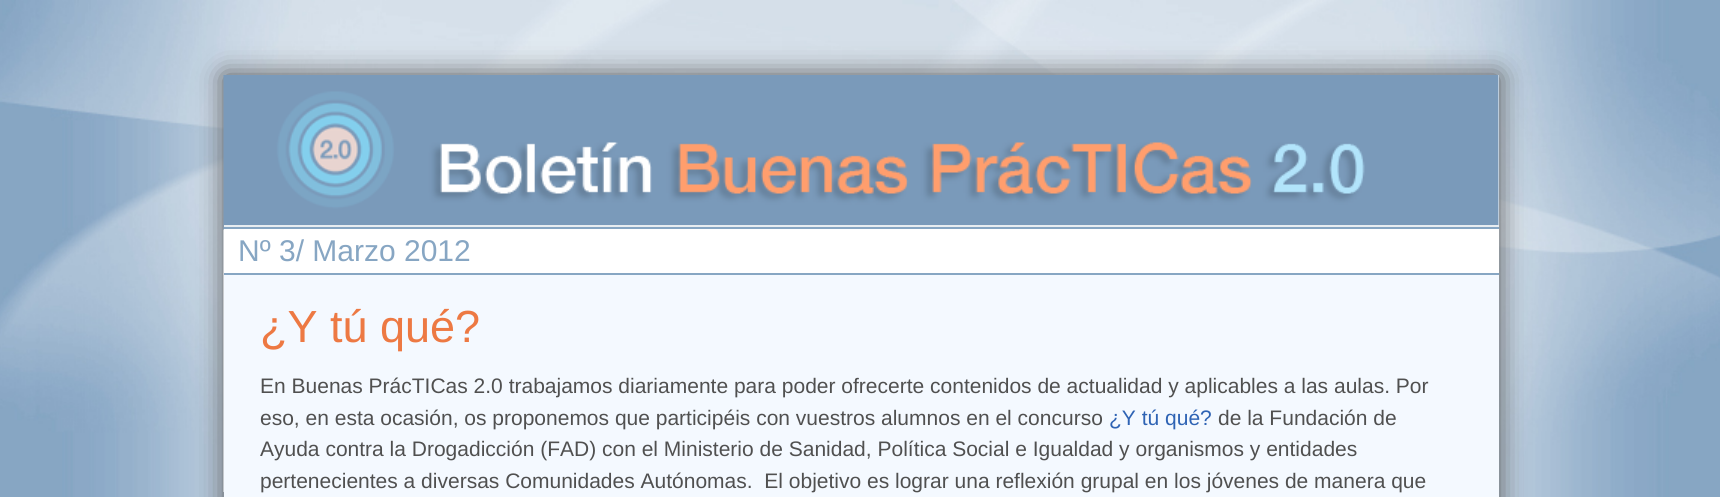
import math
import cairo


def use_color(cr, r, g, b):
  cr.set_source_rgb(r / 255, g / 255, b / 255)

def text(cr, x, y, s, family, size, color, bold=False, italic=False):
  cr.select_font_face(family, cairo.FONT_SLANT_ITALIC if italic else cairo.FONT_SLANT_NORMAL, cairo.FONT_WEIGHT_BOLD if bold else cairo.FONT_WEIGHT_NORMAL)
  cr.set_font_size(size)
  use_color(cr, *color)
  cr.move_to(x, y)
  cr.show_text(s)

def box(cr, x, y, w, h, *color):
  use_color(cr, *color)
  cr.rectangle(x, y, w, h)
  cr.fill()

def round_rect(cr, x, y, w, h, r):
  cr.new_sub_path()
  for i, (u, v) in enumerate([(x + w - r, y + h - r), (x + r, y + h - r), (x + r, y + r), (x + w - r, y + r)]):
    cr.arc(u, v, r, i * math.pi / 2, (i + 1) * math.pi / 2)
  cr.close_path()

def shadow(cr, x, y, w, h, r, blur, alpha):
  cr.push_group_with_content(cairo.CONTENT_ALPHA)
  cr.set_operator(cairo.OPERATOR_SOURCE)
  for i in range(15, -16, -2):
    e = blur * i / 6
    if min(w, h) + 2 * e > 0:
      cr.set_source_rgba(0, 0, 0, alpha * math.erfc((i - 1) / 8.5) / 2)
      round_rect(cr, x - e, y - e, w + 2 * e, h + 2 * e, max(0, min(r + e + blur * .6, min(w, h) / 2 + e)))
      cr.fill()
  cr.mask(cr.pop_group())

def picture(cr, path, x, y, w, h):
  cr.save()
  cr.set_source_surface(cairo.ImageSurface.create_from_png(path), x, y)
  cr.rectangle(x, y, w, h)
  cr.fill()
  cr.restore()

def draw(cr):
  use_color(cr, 255, 255, 255)
  cr.paint()
  picture(cr, "img_01.png", 0, 0, 1720, 497)
  use_color(cr, 85, 85, 85)
  shadow(cr, 224, 75, 1275, 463, 0, 13.5, 1)
  box(cr, 1498, 75, 1, 150, 255, 255, 255)
  picture(cr, "img_02.png", 223, 75, 1276, 417)
  box(cr, 224, 275, 1275, 222, 244, 249, 255)
  box(cr, 224, 225, 1275, 2, 232, 237, 241)
  box(cr, 224, 229, 1275, 44, 255, 255, 255)
  box(cr, 224, 227, 1275, 2, 135, 166, 195)
  box(cr, 224, 273, 1275, 2, 135, 166, 195)
  text(cr, 238, 261, "Nº 3/ Marzo 2012", "Liberation Sans", 30, (135, 166, 195))
  text(cr, 260, 342, "¿Y tú qué?", "Liberation Sans", 45, (237, 121, 67))
  text(cr, 260, 393, "En Buenas PrácTICas 2.0 trabajamos diariamente para poder ofrecerte contenidos de actualidad y aplicables a las aulas. Por", "Liberation Sans", 21, (80, 80, 80))
  text(cr, 260, 425, "eso, en esta ocasión, os proponemos que participéis con vuestros alumnos en el concurso", "Liberation Sans", 21, (80, 80, 80))
  text(cr, 1109, 425, "¿Y tú qué?", "Liberation Sans", 21, (46, 99, 180))
  text(cr, 1218, 425, "de la Fundación de", "Liberation Sans", 21, (80, 80, 80))
  text(cr, 260, 456, "Ayuda contra la Drogadicción (FAD) con el Ministerio de Sanidad, Política Social e Igualdad y organismos y entidades", "Liberation Sans", 21, (80, 80, 80))
  text(cr, 260, 488, "pertenecientes a diversas Comunidades Autónomas.  El objetivo es lograr una reflexión grupal en los jóvenes de manera que", "Liberation Sans", 21, (80, 80, 80))


surface = cairo.ImageSurface(cairo.FORMAT_RGB24, 1720, 497)
cr = cairo.Context(surface)
options = cairo.FontOptions()
options.set_hint_metrics(cairo.HINT_METRICS_OFF)
options.set_hint_style(cairo.HINT_STYLE_NONE)
cr.set_font_options(options)
cr.set_miter_limit(4)
draw(cr)
surface.write_to_png("out.png")
